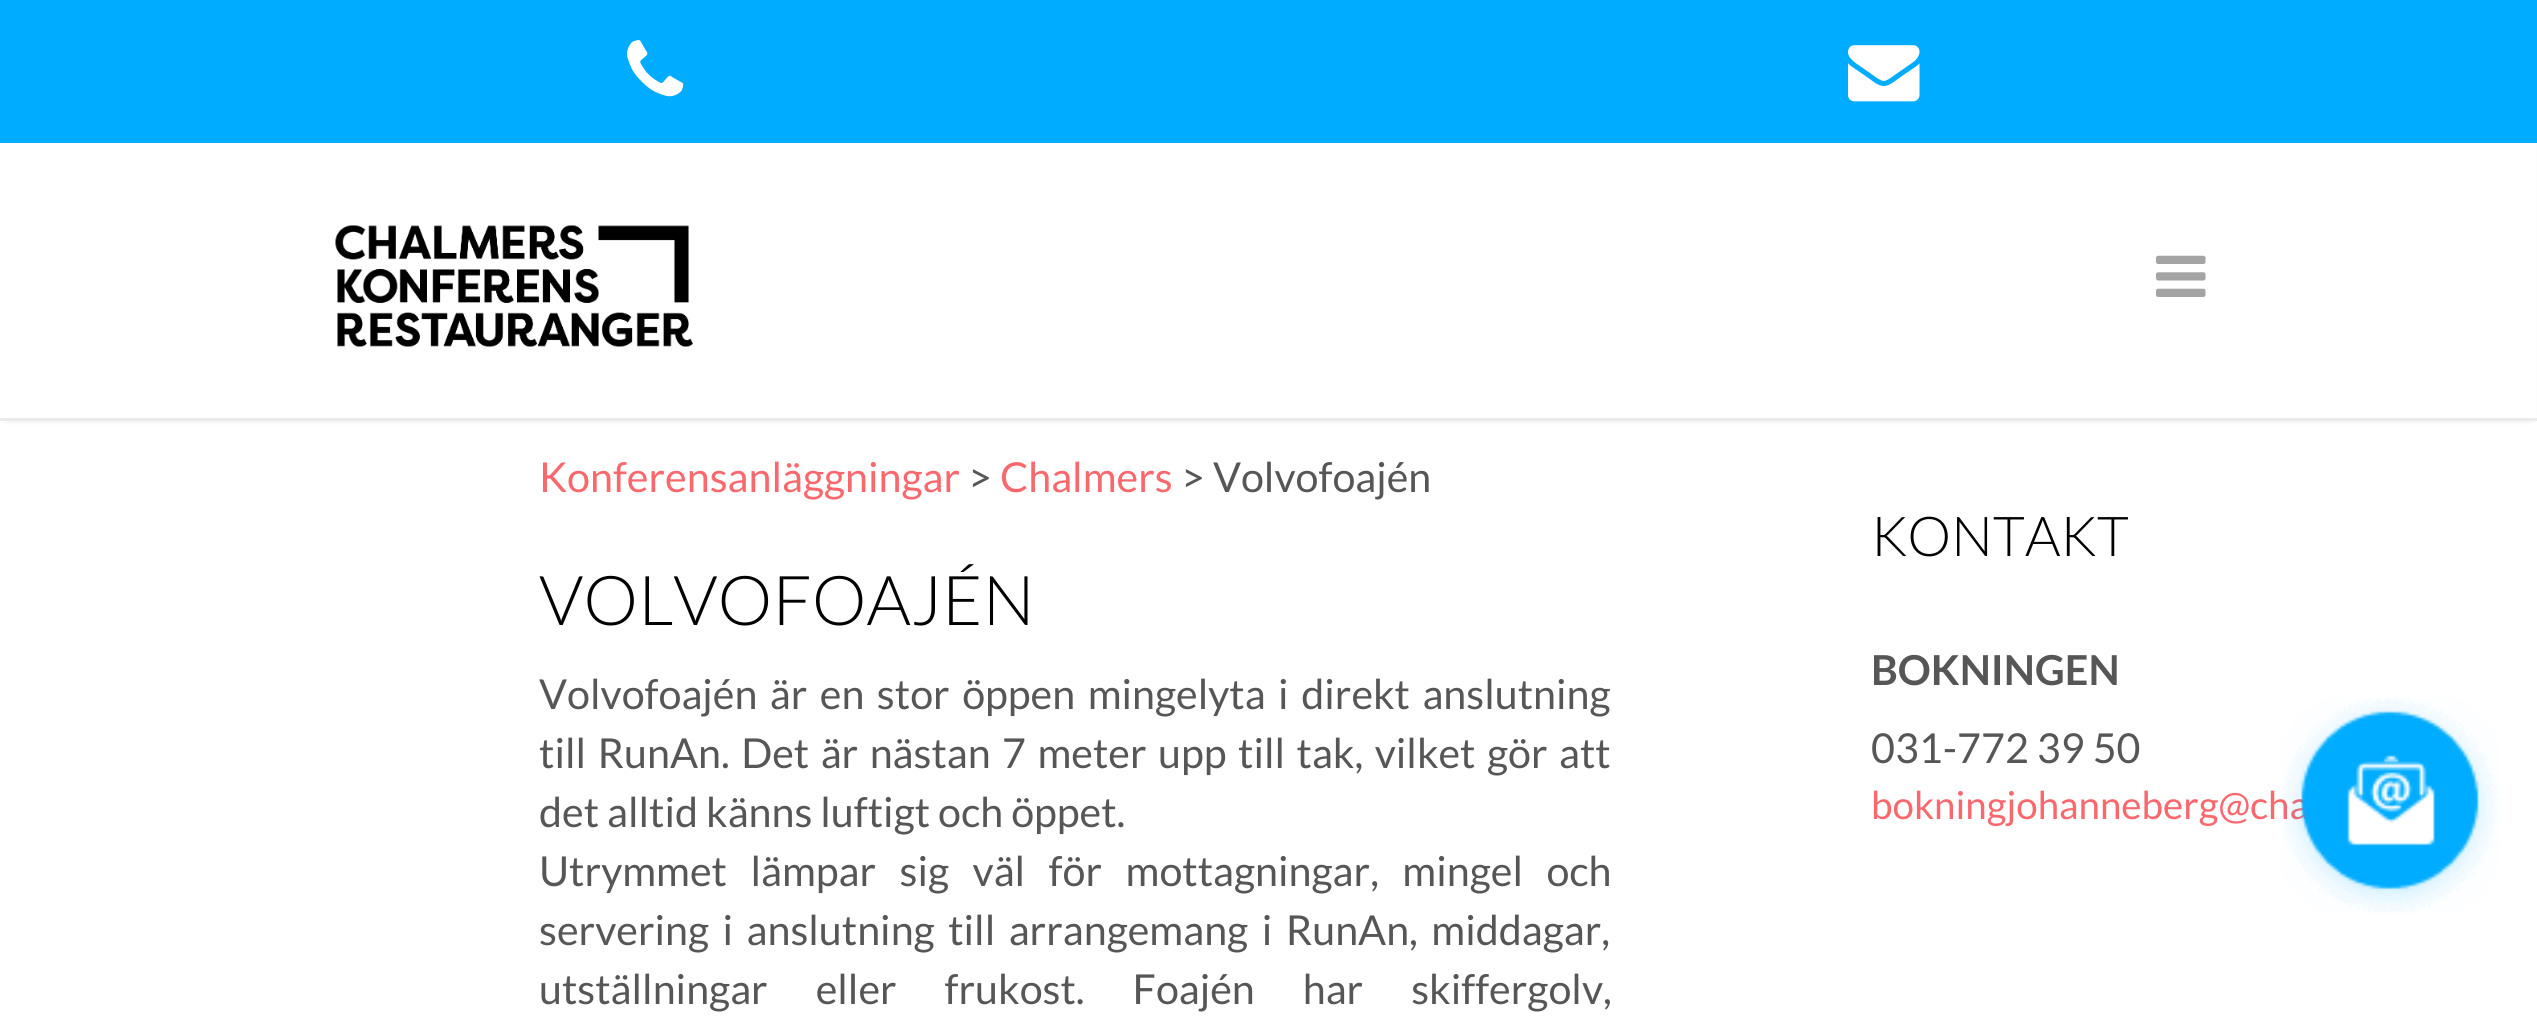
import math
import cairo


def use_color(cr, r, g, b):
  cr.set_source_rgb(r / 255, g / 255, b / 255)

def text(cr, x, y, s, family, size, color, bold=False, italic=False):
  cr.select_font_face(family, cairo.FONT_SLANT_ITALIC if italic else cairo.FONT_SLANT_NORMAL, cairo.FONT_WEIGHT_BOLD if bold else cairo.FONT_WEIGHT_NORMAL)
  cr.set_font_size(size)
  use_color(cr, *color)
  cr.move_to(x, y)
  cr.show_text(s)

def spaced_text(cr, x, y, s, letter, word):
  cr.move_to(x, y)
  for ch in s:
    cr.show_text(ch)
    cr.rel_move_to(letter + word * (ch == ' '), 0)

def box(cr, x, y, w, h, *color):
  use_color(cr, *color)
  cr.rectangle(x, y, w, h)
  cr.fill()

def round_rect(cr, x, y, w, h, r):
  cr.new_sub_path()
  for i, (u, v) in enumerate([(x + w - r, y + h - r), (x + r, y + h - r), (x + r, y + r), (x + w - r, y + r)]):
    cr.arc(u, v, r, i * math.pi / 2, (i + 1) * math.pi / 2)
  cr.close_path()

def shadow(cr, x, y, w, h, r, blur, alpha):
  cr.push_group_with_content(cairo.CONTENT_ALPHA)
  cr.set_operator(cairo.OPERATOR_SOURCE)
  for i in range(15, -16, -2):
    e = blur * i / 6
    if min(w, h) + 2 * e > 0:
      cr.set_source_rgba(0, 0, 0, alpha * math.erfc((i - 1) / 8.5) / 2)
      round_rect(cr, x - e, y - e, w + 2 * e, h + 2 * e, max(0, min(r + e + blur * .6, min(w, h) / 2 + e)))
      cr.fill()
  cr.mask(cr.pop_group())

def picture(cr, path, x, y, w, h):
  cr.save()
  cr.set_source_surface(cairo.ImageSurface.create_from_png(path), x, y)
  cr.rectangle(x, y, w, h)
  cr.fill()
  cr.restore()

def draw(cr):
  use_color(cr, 255, 255, 255)
  cr.paint()
  use_color(cr, 0, 0, 0)
  shadow(cr, 6, 11, 2527, 410, 0, 3, 0.08)
  box(cr, 3, 143, 2533, 275, 255, 255, 255)
  box(cr, 0, 418, 2537, 3, 235, 235, 235)
  box(cr, 0, 0, 2537, 143, 0, 172, 255)
  picture(cr, "img_01.png", 627, 40, 57, 57)
  picture(cr, "img_02.png", 1848, 45, 72, 57)
  picture(cr, "img_03.png", 335, 225, 358, 122)
  picture(cr, "img_04.png", 2156, 255, 50, 42)
  text(cr, 539, 492, "Konferensanläggningar", "Lato", 41.25, (248, 104, 109))
  text(cr, 968, 492, ">", "Lato", 41.25, (86, 86, 86))
  text(cr, 1000, 492, "Chalmers", "Lato", 41.25, (248, 104, 109))
  text(cr, 1181, 492, "> Volvofoajén", "Lato", 41.25, (86, 86, 86))
  text(cr, 539, 625, "VOLVOFOAJÉN", "Lato Light", 68.75, (0, 0, 0))
  cr.select_font_face("Lato")
  cr.set_font_size(41.25)
  use_color(cr, 86, 86, 86)
  spaced_text(cr, 539, 709, "Volvofoajén är en stor öppen mingelyta i direkt anslutning", 0, 4.5)
  spaced_text(cr, 539, 768, "till RunAn. Det är nästan 7 meter upp till tak, vilket gör att", 0, 3.5)
  text(cr, 539, 827, "det alltid känns luftigt och öppet.", "Lato", 41.25, (86, 86, 86))
  spaced_text(cr, 539, 886, "Utrymmet lämpar sig väl för mottagningar, mingel och", 0, 15.5)
  spaced_text(cr, 539, 945, "servering i anslutning till arrangemang i RunAn, middagar,", 0, 5.5)
  spaced_text(cr, 539, 1004, "utställningar eller frukost. Foajén har skiffergolv,", 0, 40)
  text(cr, 1871, 556, "KONTAKT", "Lato Light", 55, (0, 0, 0))
  text(cr, 1871, 685, "BOKNINGEN", "Lato", 41.25, (86, 86, 86), bold=True)
  text(cr, 1871, 763, "031-772 39 50", "Lato", 41.25, (86, 86, 86))
  text(cr, 1871, 819, "bokningjohanneberg@cha", "Lato", 38.5, (248, 104, 109))
  picture(cr, "img_05.png", 2282, 698, 218, 215)


surface = cairo.ImageSurface(cairo.FORMAT_RGB24, 2537, 1035)
cr = cairo.Context(surface)
options = cairo.FontOptions()
options.set_hint_metrics(cairo.HINT_METRICS_OFF)
options.set_hint_style(cairo.HINT_STYLE_NONE)
cr.set_font_options(options)
cr.set_miter_limit(4)
draw(cr)
surface.write_to_png("out.png")
